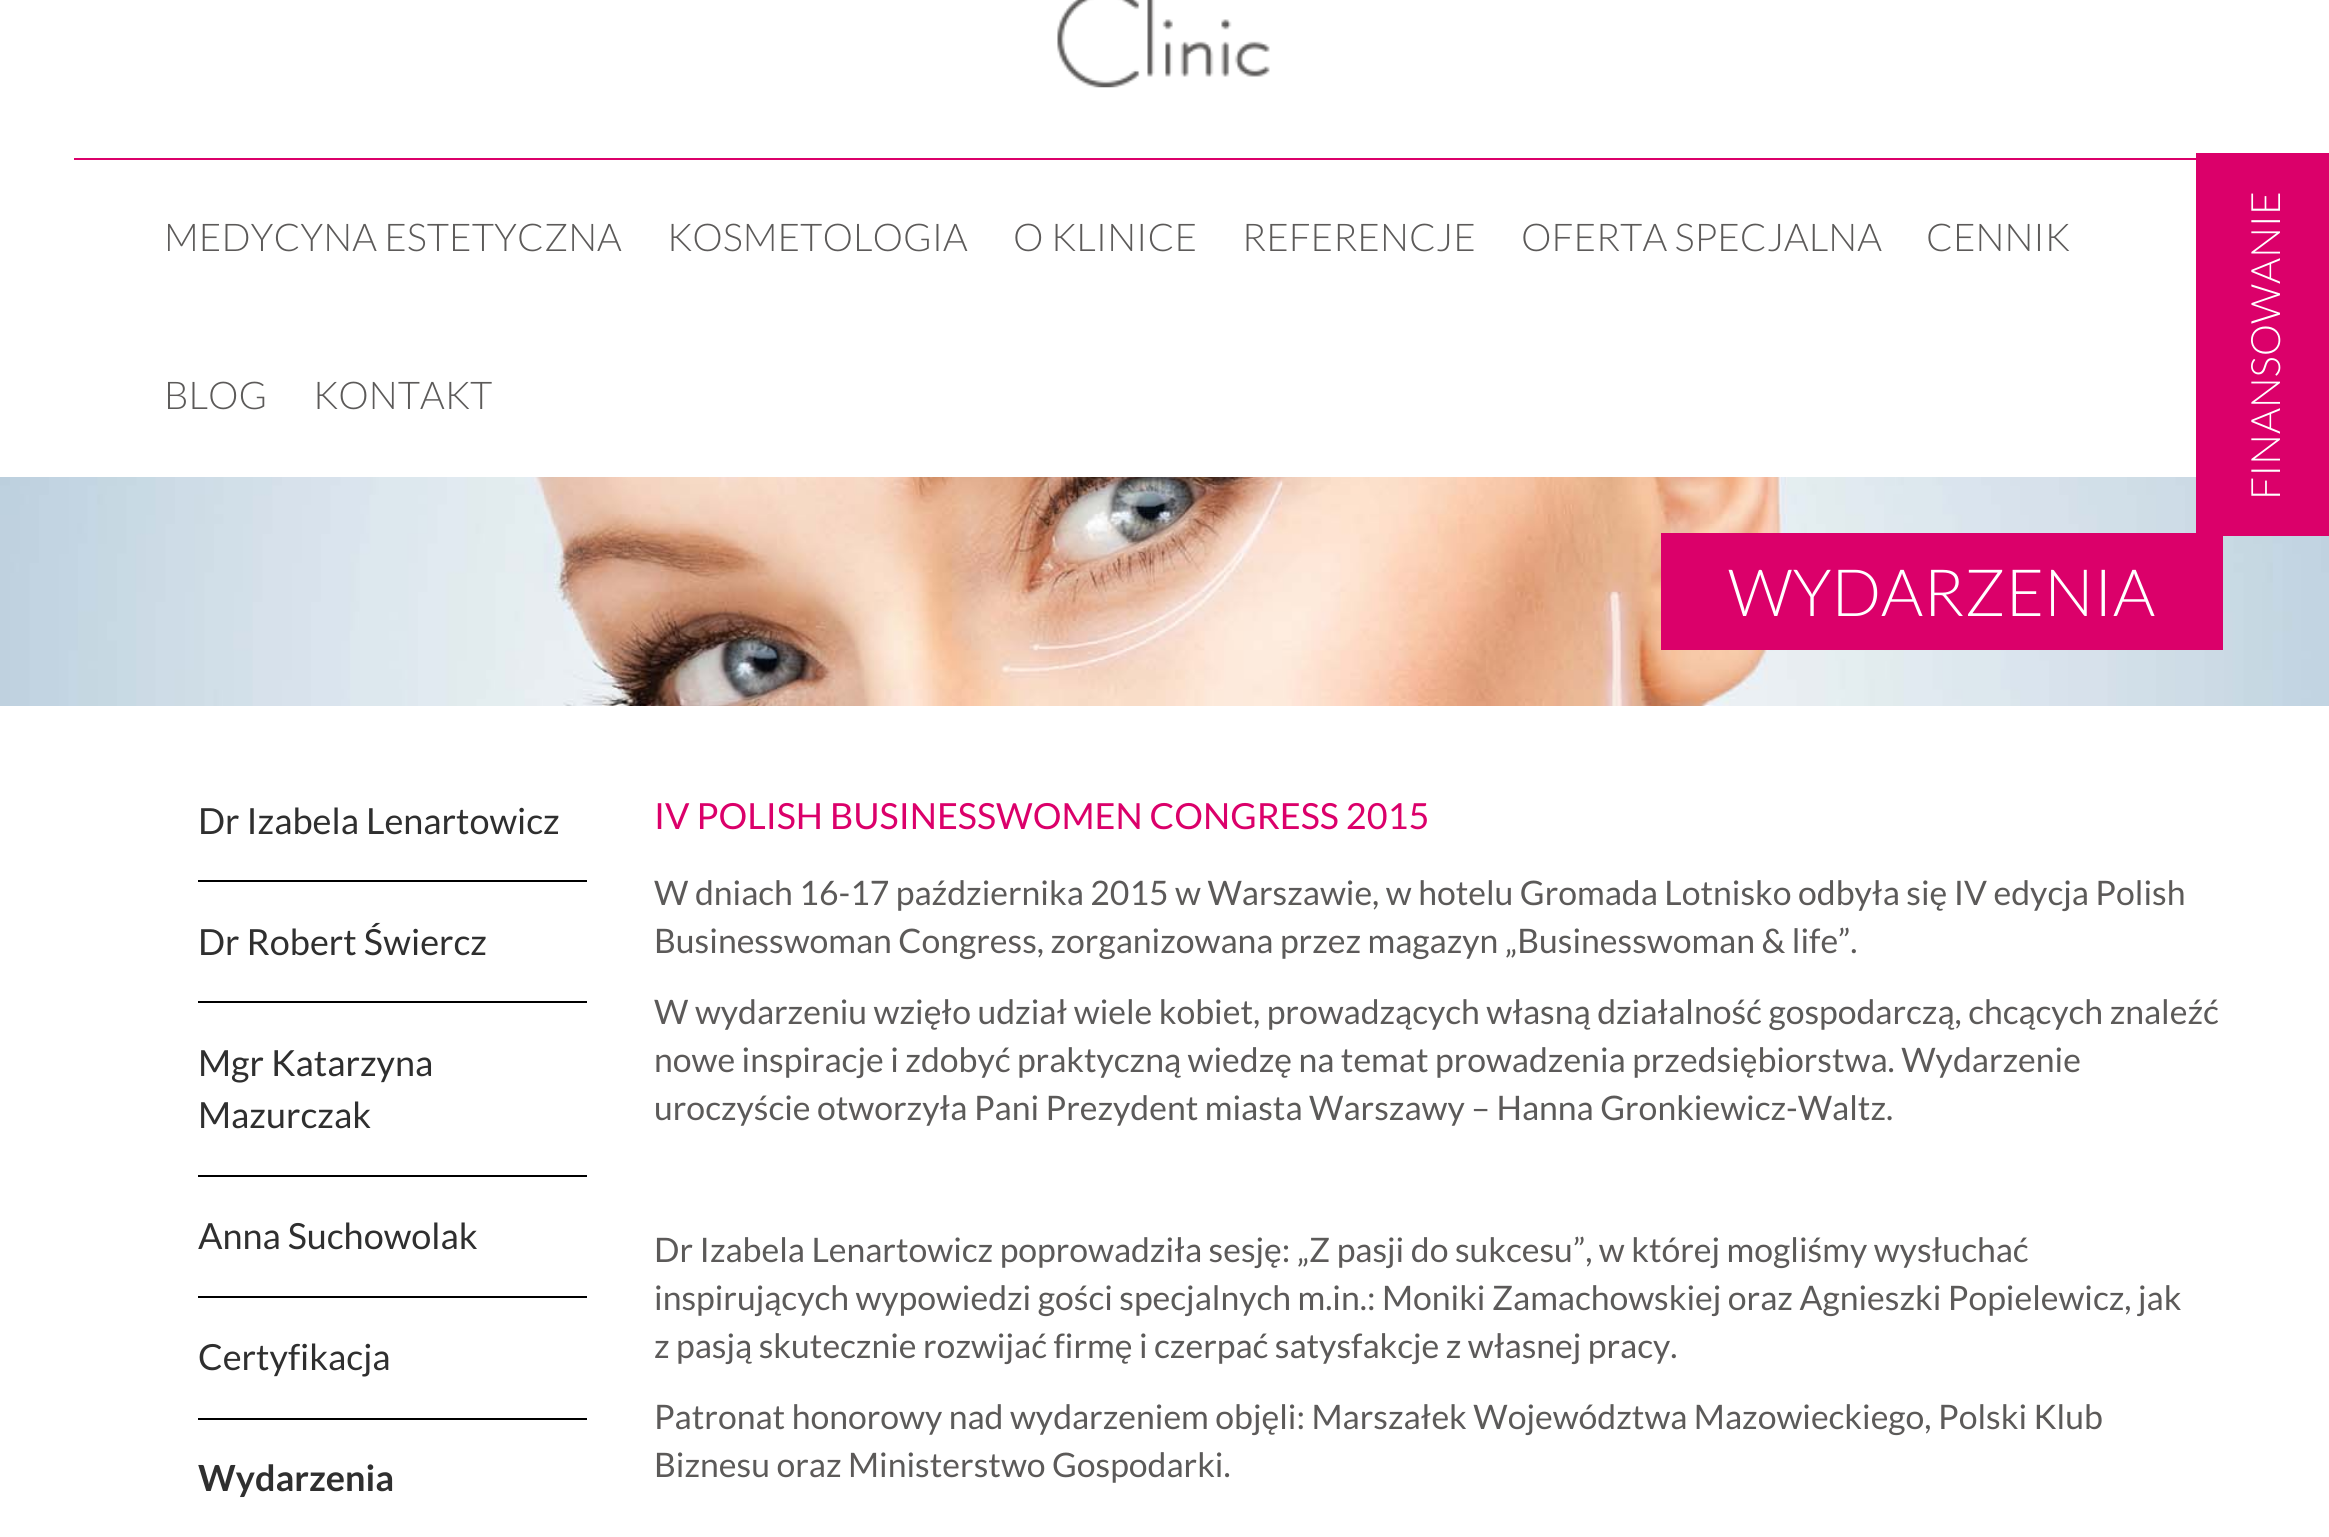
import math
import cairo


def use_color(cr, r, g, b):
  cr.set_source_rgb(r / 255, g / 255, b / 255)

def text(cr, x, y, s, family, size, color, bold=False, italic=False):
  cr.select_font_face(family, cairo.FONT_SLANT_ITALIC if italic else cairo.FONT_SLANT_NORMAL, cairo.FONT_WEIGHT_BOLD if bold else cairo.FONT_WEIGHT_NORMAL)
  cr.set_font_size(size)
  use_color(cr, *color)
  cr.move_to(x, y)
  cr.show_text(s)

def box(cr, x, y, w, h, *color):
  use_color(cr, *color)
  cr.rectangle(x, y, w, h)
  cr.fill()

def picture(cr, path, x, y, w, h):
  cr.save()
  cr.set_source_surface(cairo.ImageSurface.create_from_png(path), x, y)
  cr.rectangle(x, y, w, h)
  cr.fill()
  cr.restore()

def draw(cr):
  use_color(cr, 255, 255, 255)
  cr.paint()
  picture(cr, "img_01.png", 1057, 0, 213, 88)
  box(cr, 74, 158, 2122, 2, 219, 0, 106)
  picture(cr, "img_02.png", 0, 477, 2329, 229)
  box(cr, 1661, 533, 562, 117, 219, 0, 106)
  box(cr, 2196, 153, 133, 383, 219, 0, 106)
  box(cr, 198, 880, 389, 2, 0, 0, 0)
  box(cr, 198, 1001, 389, 2, 0, 0, 0)
  box(cr, 198, 1175, 389, 2, 0, 0, 0)
  box(cr, 198, 1296, 389, 2, 0, 0, 0)
  box(cr, 198, 1418, 389, 2, 0, 0, 0)
  text(cr, 164, 251, "MEDYCYNA ESTETYCZNA", "Lato Light", 38.25, (92, 90, 89))
  text(cr, 667, 251, "KOSMETOLOGIA", "Lato Light", 38.25, (92, 90, 89))
  text(cr, 1013, 251, "O KLINICE", "Lato Light", 38.25, (92, 90, 89))
  text(cr, 1242, 251, "REFERENCJE", "Lato Light", 38.25, (92, 90, 89))
  text(cr, 1521, 251, "OFERTA SPECJALNA", "Lato Light", 38.25, (92, 90, 89))
  text(cr, 1926, 251, "CENNIK", "Lato Light", 38.25, (92, 90, 89))
  text(cr, 164, 409, "BLOG", "Lato Light", 38.25, (92, 90, 89))
  text(cr, 313, 409, "KONTAKT", "Lato Light", 38.25, (92, 90, 89))
  cr.save()
  cr.translate(2280, 500)
  cr.rotate(-90 * math.pi / 180)
  text(cr, 0, 0, "FINANSOWANIE", "Lato Light", 40.5, (255, 255, 255))
  cr.restore()
  text(cr, 1728, 616, "WYDARZENIA", "Lato Light", 65.25, (255, 255, 255))
  text(cr, 198, 834, "Dr Izabela Lenartowicz", "Lato", 36, (47, 47, 47))
  text(cr, 198, 955, "Dr Robert Świercz", "Lato", 36, (47, 47, 47))
  text(cr, 198, 1076, "Mgr Katarzyna", "Lato", 36, (47, 47, 47))
  text(cr, 198, 1128, "Mazurczak", "Lato", 36, (47, 47, 47))
  text(cr, 198, 1249, "Anna Suchowolak", "Lato", 36, (47, 47, 47))
  text(cr, 198, 1370, "Certyfikacja", "Lato", 36, (47, 47, 47))
  text(cr, 198, 1491, "Wydarzenia", "Lato", 36, (47, 47, 47), bold=True)
  text(cr, 654, 829, "IV POLISH BUSINESSWOMEN CONGRESS 2015", "Lato", 36, (219, 0, 106))
  text(cr, 654, 905, "W dniach 16-17 października 2015 w Warszawie, w hotelu Gromada Lotnisko odbyła się IV edycja Polish", "Lato", 33.75, (92, 90, 89))
  text(cr, 654, 953, "Businesswoman Congress, zorganizowana przez magazyn „Businesswoman & life”.", "Lato", 33.75, (92, 90, 89))
  text(cr, 654, 1024, "W wydarzeniu wzięło udział wiele kobiet, prowadzących własną działalność gospodarczą, chcących znaleźć", "Lato", 33.75, (92, 90, 89))
  text(cr, 654, 1072, "nowe inspiracje i zdobyć praktyczną wiedzę na temat prowadzenia przedsiębiorstwa. Wydarzenie", "Lato", 33.75, (92, 90, 89))
  text(cr, 654, 1120, "uroczyście otworzyła Pani Prezydent miasta Warszawy – Hanna Gronkiewicz-Waltz.", "Lato", 33.75, (92, 90, 89))
  text(cr, 654, 1262, "Dr Izabela Lenartowicz poprowadziła sesję: „Z pasji do sukcesu”, w której mogliśmy wysłuchać", "Lato", 33.75, (92, 90, 89))
  text(cr, 654, 1310, "inspirujących wypowiedzi gości specjalnych m.in.: Moniki Zamachowskiej oraz Agnieszki Popielewicz, jak", "Lato", 33.75, (92, 90, 89))
  text(cr, 654, 1358, "z pasją skutecznie rozwijać firmę i czerpać satysfakcje z własnej pracy.", "Lato", 33.75, (92, 90, 89))
  text(cr, 654, 1429, "Patronat honorowy nad wydarzeniem objęli: Marszałek Województwa Mazowieckiego, Polski Klub", "Lato", 33.75, (92, 90, 89))
  text(cr, 654, 1477, "Biznesu oraz Ministerstwo Gospodarki.", "Lato", 33.75, (92, 90, 89))


surface = cairo.ImageSurface(cairo.FORMAT_RGB24, 2329, 1537)
cr = cairo.Context(surface)
options = cairo.FontOptions()
options.set_hint_metrics(cairo.HINT_METRICS_OFF)
options.set_hint_style(cairo.HINT_STYLE_NONE)
cr.set_font_options(options)
cr.set_miter_limit(4)
draw(cr)
surface.write_to_png("out.png")
